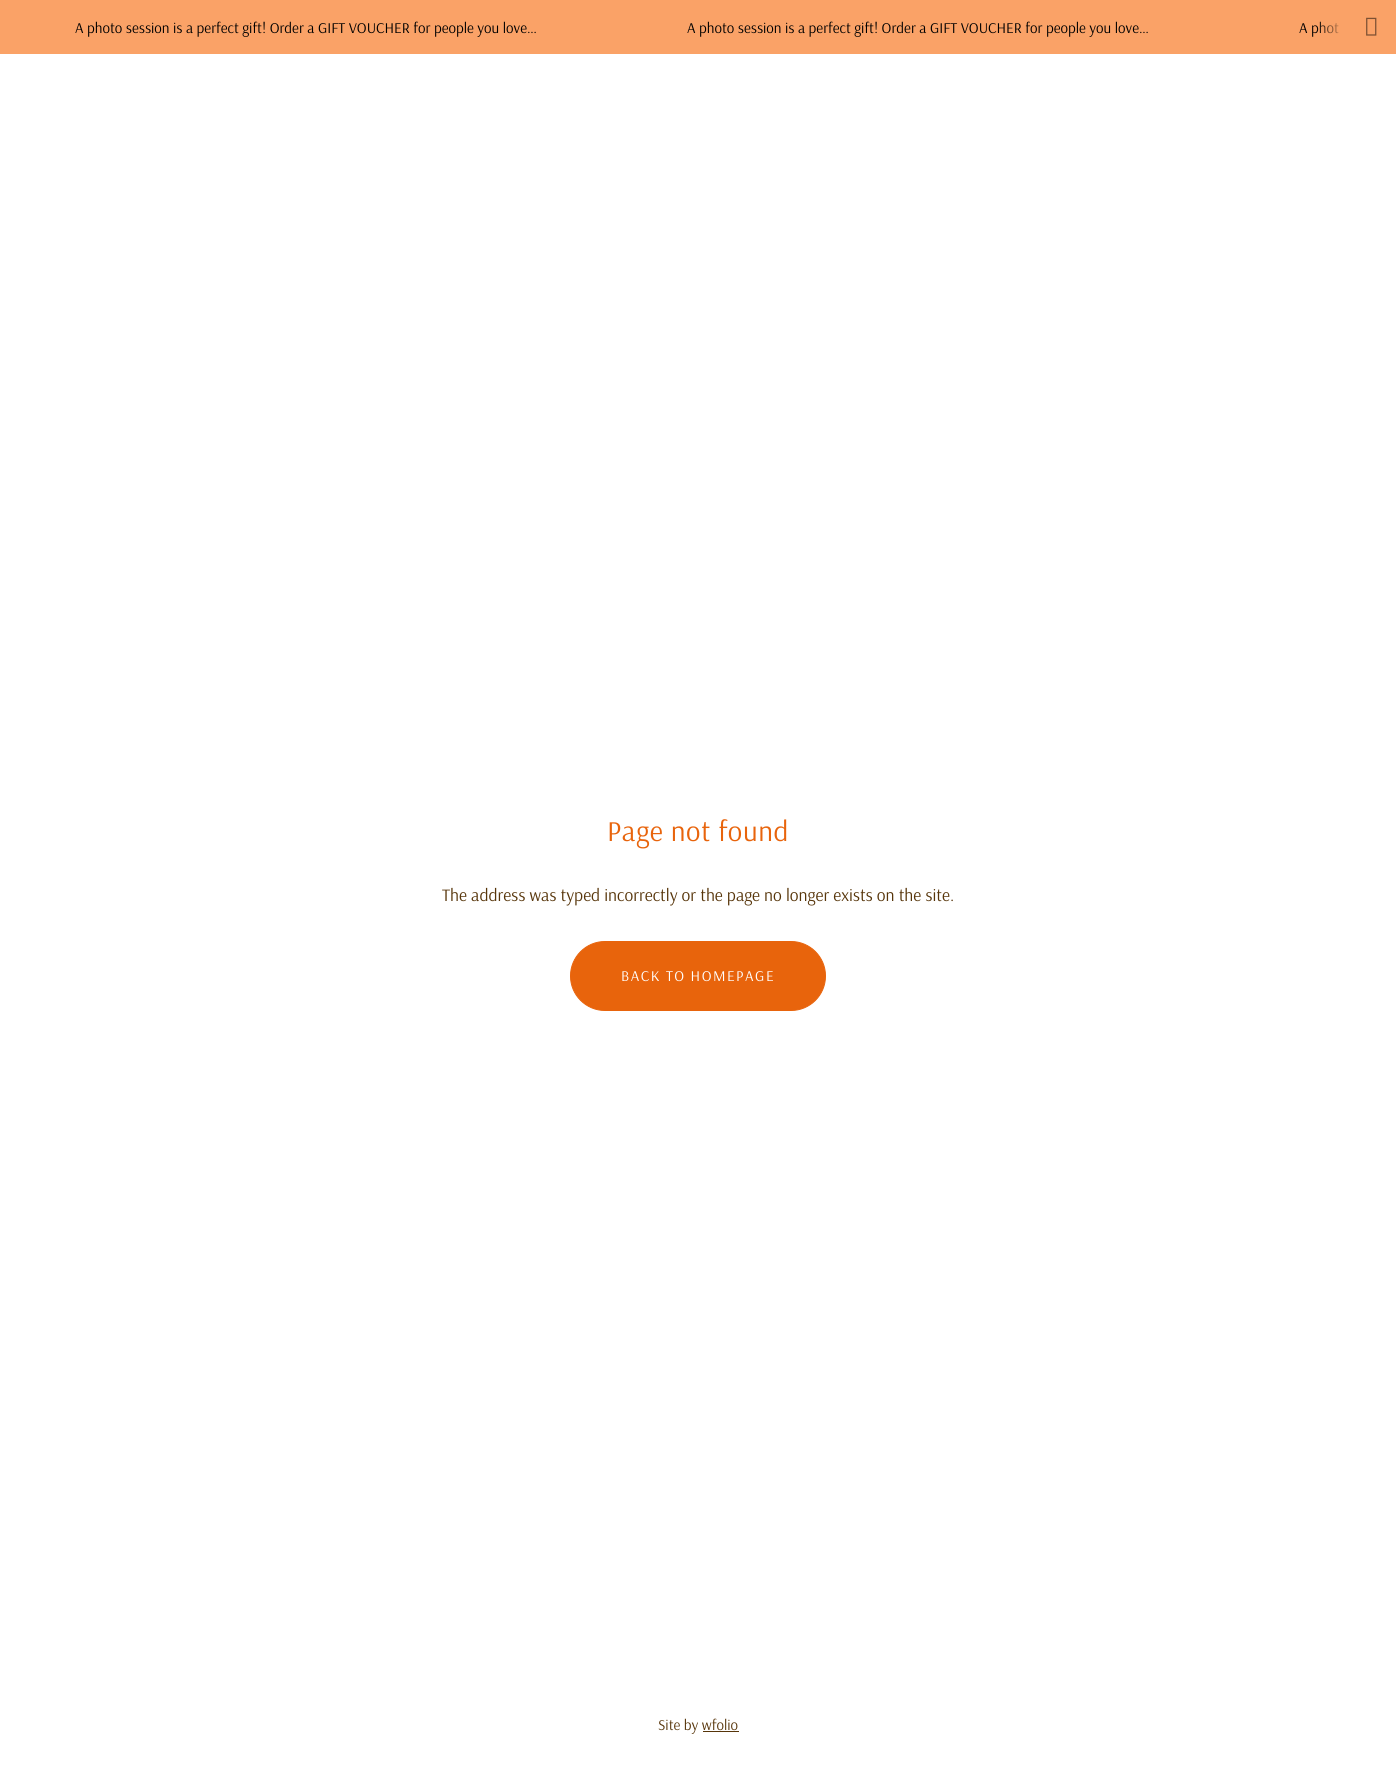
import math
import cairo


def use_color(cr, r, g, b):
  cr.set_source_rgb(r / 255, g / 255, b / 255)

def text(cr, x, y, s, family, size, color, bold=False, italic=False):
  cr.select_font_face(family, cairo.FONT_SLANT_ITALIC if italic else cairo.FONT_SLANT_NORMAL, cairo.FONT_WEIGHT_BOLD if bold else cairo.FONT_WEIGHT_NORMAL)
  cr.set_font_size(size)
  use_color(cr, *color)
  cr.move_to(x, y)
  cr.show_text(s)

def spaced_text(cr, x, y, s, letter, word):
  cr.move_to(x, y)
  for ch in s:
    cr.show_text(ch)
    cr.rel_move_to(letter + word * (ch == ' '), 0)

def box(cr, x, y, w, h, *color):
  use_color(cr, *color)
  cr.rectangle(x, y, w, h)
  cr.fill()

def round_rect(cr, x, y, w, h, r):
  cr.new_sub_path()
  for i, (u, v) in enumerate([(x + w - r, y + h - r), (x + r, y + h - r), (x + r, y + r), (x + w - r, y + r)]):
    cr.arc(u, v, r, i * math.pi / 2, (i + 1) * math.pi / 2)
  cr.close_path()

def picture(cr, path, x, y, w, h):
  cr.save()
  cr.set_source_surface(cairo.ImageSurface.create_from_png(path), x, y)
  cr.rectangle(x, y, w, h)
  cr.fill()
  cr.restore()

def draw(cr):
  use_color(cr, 255, 255, 255)
  cr.paint()
  box(cr, 0, 0, 1396, 54, 250, 162, 103)
  picture(cr, "img_01.png", 1366, 17, 11, 19)
  use_color(cr, 232, 100, 12)
  round_rect(cr, 570.5, 941.5, 255, 69, 34.5)
  cr.fill_preserve()
  cr.set_line_width(1)
  cr.stroke()
  box(cr, 703, 1731, 36, 1, 87, 53, 10)
  text(cr, 75, 33, "A photo session is a perfect gift! Order a GIFT VOUCHER for people you love…", "Arsenal", 15, (0, 0, 0))
  text(cr, 687, 33, "A photo session is a perfect gift! Order a GIFT VOUCHER for people you love…", "Arsenal", 15, (0, 0, 0))
  text(cr, 1299, 33, "A phot", "Arsenal", 15, (0, 0, 0))
  gradient = cairo.LinearGradient(1316, 28, 1346, 28)
  gradient.add_color_stop_rgba(0, 0.98, 0.635, 0.404, 0)
  gradient.add_color_stop_rgba(1, 0.98, 0.635, 0.404, 1)
  cr.set_source(gradient)
  cr.rectangle(1317, 21, 22, 13)
  cr.fill()
  cr.set_font_size(28.75)
  use_color(cr, 232, 100, 12)
  spaced_text(cr, 607, 841, "Page not found", 0.6, 0)
  text(cr, 442, 901, "The address was typed incorrectly or the page no longer exists on the site.", "Arsenal", 17.5, (87, 53, 10))
  cr.set_font_size(15)
  use_color(cr, 255, 255, 255)
  spaced_text(cr, 621, 981, "BACK TO HOMEPAGE", 1.5, 0)
  text(cr, 658, 1730, "Site by wfolio", "Arsenal", 15, (87, 53, 10))


surface = cairo.ImageSurface(cairo.FORMAT_RGB24, 1396, 1768)
cr = cairo.Context(surface)
options = cairo.FontOptions()
options.set_hint_metrics(cairo.HINT_METRICS_OFF)
options.set_hint_style(cairo.HINT_STYLE_NONE)
cr.set_font_options(options)
cr.set_miter_limit(4)
draw(cr)
surface.write_to_png("out.png")
